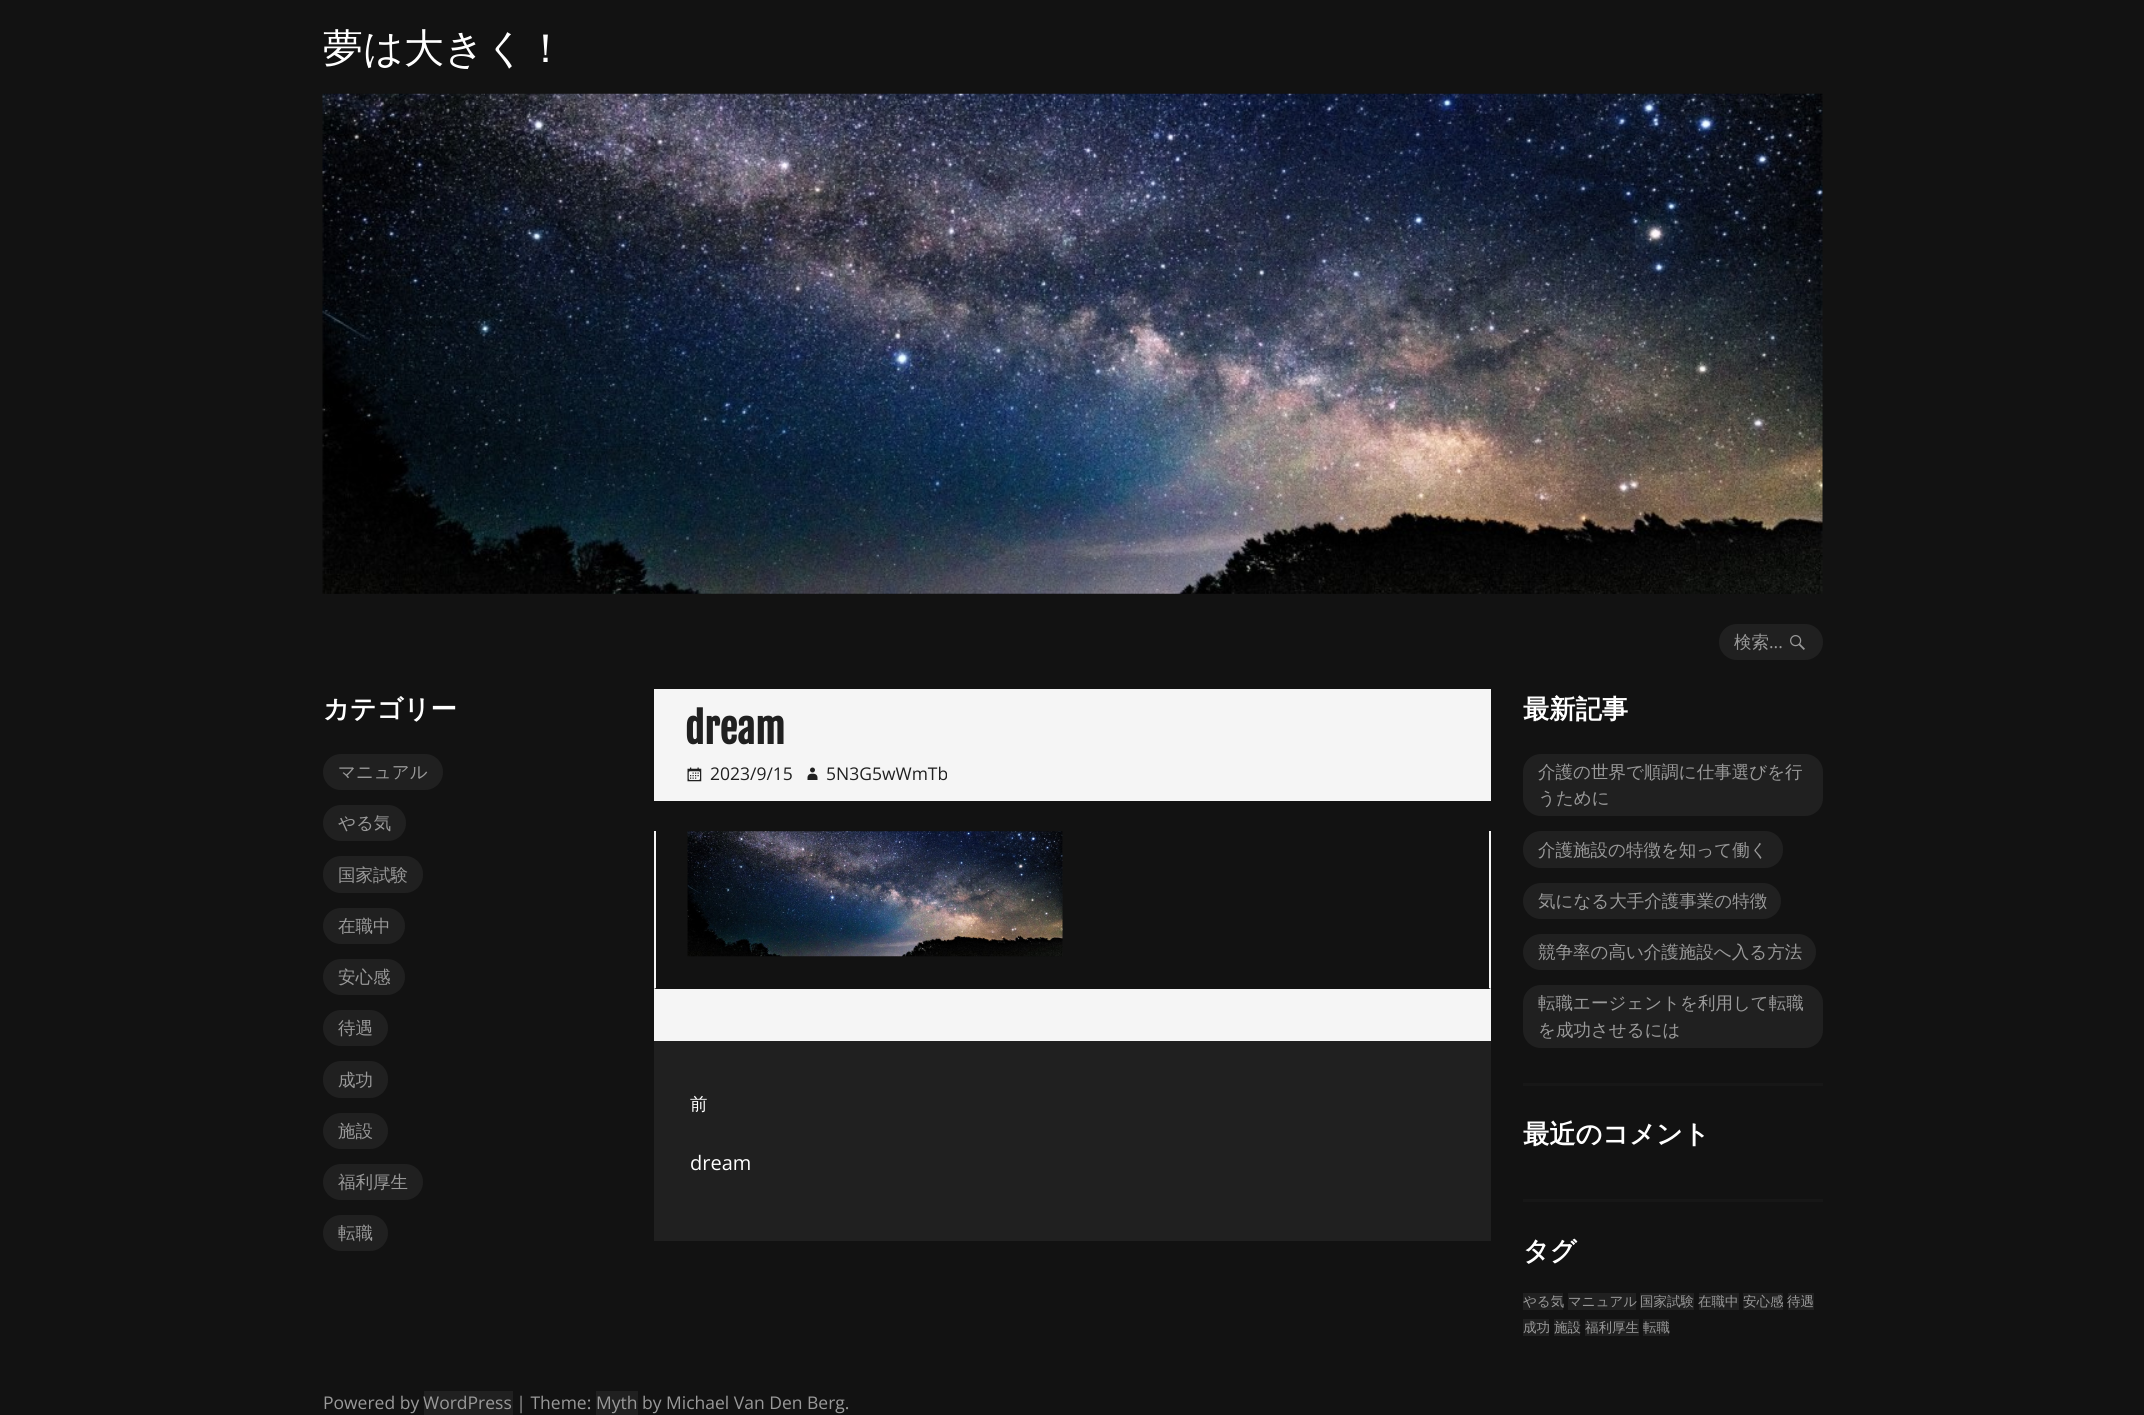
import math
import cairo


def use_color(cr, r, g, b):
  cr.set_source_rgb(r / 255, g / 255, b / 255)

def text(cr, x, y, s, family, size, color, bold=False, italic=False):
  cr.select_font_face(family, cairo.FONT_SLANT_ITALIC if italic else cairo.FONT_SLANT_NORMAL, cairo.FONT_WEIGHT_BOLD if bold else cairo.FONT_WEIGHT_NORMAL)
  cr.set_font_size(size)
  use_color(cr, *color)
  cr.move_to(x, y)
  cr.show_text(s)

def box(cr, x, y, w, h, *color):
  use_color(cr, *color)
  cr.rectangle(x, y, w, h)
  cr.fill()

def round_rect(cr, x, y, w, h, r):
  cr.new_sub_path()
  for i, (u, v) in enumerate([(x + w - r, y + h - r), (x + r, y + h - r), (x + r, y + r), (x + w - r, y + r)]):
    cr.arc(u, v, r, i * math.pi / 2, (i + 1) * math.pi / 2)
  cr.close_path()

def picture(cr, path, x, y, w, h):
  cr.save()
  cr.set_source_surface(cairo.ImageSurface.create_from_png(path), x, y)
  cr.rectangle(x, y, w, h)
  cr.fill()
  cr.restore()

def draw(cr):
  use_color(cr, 18, 18, 18)
  cr.paint()
  picture(cr, "img_01.png", 322, 93, 1501, 501)
  use_color(cr, 32, 32, 32)
  round_rect(cr, 1719, 624, 104, 36, 18)
  cr.fill()
  picture(cr, "img_02.png", 1790, 635, 15, 15)
  round_rect(cr, 323, 754, 120, 36, 18)
  cr.fill()
  round_rect(cr, 323, 805, 83, 36, 18)
  cr.fill()
  round_rect(cr, 323, 856, 100, 37, 18)
  cr.fill()
  round_rect(cr, 323, 908, 82, 36, 18)
  cr.fill()
  round_rect(cr, 323, 959, 82, 36, 18)
  cr.fill()
  round_rect(cr, 323, 1010, 65, 36, 18)
  cr.fill()
  round_rect(cr, 323, 1061, 65, 37, 18)
  cr.fill()
  round_rect(cr, 323, 1113, 65, 36, 18)
  cr.fill()
  round_rect(cr, 323, 1164, 100, 36, 18)
  cr.fill()
  round_rect(cr, 323, 1215, 65, 36, 18)
  cr.fill()
  box(cr, 654, 689, 837, 112, 245, 245, 245)
  picture(cr, "img_03.png", 687, 767, 15, 15)
  picture(cr, "img_04.png", 807, 767, 11, 13)
  cr.new_path()
  cr.move_to(1491, 831)
  cr.line_to(1491, 989)
  cr.line_to(1489, 988)
  cr.line_to(1489, 831)
  cr.close_path()
  cr.fill()
  cr.new_path()
  cr.move_to(654, 989)
  cr.line_to(654, 831)
  cr.line_to(656, 831)
  cr.line_to(656, 988)
  cr.close_path()
  cr.fill()
  picture(cr, "img_05.png", 687, 831, 376, 126)
  box(cr, 654, 989, 837, 52, 245, 245, 245)
  box(cr, 654, 1041, 837, 200, 32, 32, 32)
  box(cr, 1523, 1083, 300, 3, 23, 23, 23)
  use_color(cr, 32, 32, 32)
  round_rect(cr, 1523, 754, 300, 62, 18)
  cr.fill()
  round_rect(cr, 1523, 831, 260, 37, 18)
  cr.fill()
  round_rect(cr, 1523, 883, 258, 36, 18)
  cr.fill()
  round_rect(cr, 1523, 934, 293, 36, 18)
  cr.fill()
  round_rect(cr, 1523, 985, 300, 63, 18)
  cr.fill()
  box(cr, 1523, 1199, 300, 3, 23, 23, 23)
  box(cr, 1523, 1293, 40, 17, 32, 32, 32)
  box(cr, 1568, 1293, 68, 17, 32, 32, 32)
  box(cr, 1640, 1293, 54, 17, 32, 32, 32)
  box(cr, 1699, 1293, 40, 17, 32, 32, 32)
  box(cr, 1743, 1293, 40, 17, 32, 32, 32)
  box(cr, 1788, 1293, 26, 17, 32, 32, 32)
  box(cr, 1523, 1319, 26, 17, 32, 32, 32)
  box(cr, 1554, 1319, 26, 17, 32, 32, 32)
  box(cr, 1585, 1319, 54, 17, 32, 32, 32)
  box(cr, 1643, 1319, 26, 17, 32, 32, 32)
  box(cr, 424, 1391, 89, 24, 32, 32, 32)
  box(cr, 596, 1391, 42, 24, 32, 32, 32)
  text(cr, 323, 62, "夢は大きく！", "WenQuanYi Zen Hei Medium", 40, (255, 255, 255))
  text(cr, 1734, 648, "検索", "WenQuanYi Zen Hei Medium", 17.5, (153, 153, 153))
  text(cr, 1769, 648, "...", "Open Sans", 17.5, (153, 153, 153))
  text(cr, 323, 718, "カテゴリー", "WenQuanYi Zen Hei", 26.25, (255, 255, 255), bold=True)
  text(cr, 338, 778, "マニュアル", "WenQuanYi Zen Hei Medium", 17.5, (153, 153, 153))
  text(cr, 338, 829, "やる気", "WenQuanYi Zen Hei Medium", 17.5, (153, 153, 153))
  text(cr, 338, 881, "国家試験", "WenQuanYi Zen Hei Medium", 17.5, (153, 153, 153))
  text(cr, 338, 932, "在職中", "WenQuanYi Zen Hei Medium", 17.5, (153, 153, 153))
  text(cr, 338, 983, "安心感", "WenQuanYi Zen Hei Medium", 17.5, (153, 153, 153))
  text(cr, 338, 1034, "待遇", "WenQuanYi Zen Hei Medium", 17.5, (153, 153, 153))
  text(cr, 338, 1086, "成功", "WenQuanYi Zen Hei Medium", 17.5, (153, 153, 153))
  text(cr, 338, 1137, "施設", "WenQuanYi Zen Hei Medium", 17.5, (153, 153, 153))
  text(cr, 338, 1188, "福利厚生", "WenQuanYi Zen Hei Medium", 17.5, (153, 153, 153))
  text(cr, 338, 1239, "転職", "WenQuanYi Zen Hei Medium", 17.5, (153, 153, 153))
  text(cr, 685, 744, "dream", "Fjalla One", 40, (32, 32, 32), bold=True)
  text(cr, 710, 780, "2023/9/15", "Open Sans", 17.5, (32, 32, 32))
  text(cr, 826, 780, "5N3G5wWmTb", "Open Sans", 17.5, (32, 32, 32))
  text(cr, 690, 1110, "前", "WenQuanYi Zen Hei Medium", 17.5, (255, 255, 255))
  text(cr, 690, 1170, "dream", "Open Sans", 20, (255, 255, 255))
  text(cr, 1523, 718, "最新記事", "WenQuanYi Zen Hei", 26.25, (255, 255, 255), bold=True)
  text(cr, 1538, 778, "介護の世界で順調に仕事選びを行", "WenQuanYi Zen Hei Medium", 17.5, (153, 153, 153))
  text(cr, 1538, 804, "うために", "WenQuanYi Zen Hei Medium", 17.5, (153, 153, 153))
  text(cr, 1538, 856, "介護施設の特徴を知って働く", "WenQuanYi Zen Hei Medium", 17.5, (153, 153, 153))
  text(cr, 1538, 907, "気になる大手介護事業の特徴", "WenQuanYi Zen Hei Medium", 17.5, (153, 153, 153))
  text(cr, 1538, 958, "競争率の高い介護施設へ入る方法", "WenQuanYi Zen Hei Medium", 17.5, (153, 153, 153))
  text(cr, 1538, 1009, "転職エージェントを利用して転職", "WenQuanYi Zen Hei Medium", 17.5, (153, 153, 153))
  text(cr, 1538, 1036, "を成功させるには", "WenQuanYi Zen Hei Medium", 17.5, (153, 153, 153))
  text(cr, 1523, 1143, "最近のコメント", "WenQuanYi Zen Hei", 26.25, (255, 255, 255), bold=True)
  text(cr, 1523, 1260, "タグ", "WenQuanYi Zen Hei", 26.25, (255, 255, 255), bold=True)
  text(cr, 1523, 1306, "やる気", "WenQuanYi Zen Hei Medium", 13.5, (153, 153, 153))
  text(cr, 1568, 1306, "マニュアル", "WenQuanYi Zen Hei Medium", 13.5, (153, 153, 153))
  text(cr, 1640, 1306, "国家試験", "WenQuanYi Zen Hei Medium", 13.5, (153, 153, 153))
  text(cr, 1698, 1306, "在職中", "WenQuanYi Zen Hei Medium", 13.5, (153, 153, 153))
  text(cr, 1743, 1306, "安心感", "WenQuanYi Zen Hei Medium", 13.5, (153, 153, 153))
  text(cr, 1787, 1306, "待遇", "WenQuanYi Zen Hei Medium", 13.5, (153, 153, 153))
  text(cr, 1523, 1332, "成功", "WenQuanYi Zen Hei Medium", 13.5, (153, 153, 153))
  text(cr, 1554, 1332, "施設", "WenQuanYi Zen Hei Medium", 13.5, (153, 153, 153))
  text(cr, 1585, 1332, "福利厚生", "WenQuanYi Zen Hei Medium", 13.5, (153, 153, 153))
  text(cr, 1643, 1332, "転職", "WenQuanYi Zen Hei Medium", 13.5, (153, 153, 153))
  text(cr, 323, 1409, "Powered by", "Open Sans", 17.5, (153, 153, 153))
  text(cr, 423, 1409, "WordPress | Theme:", "Open Sans", 17.5, (153, 153, 153))
  text(cr, 596, 1409, "Myth by Michael Van Den Berg.", "Open Sans", 17.5, (153, 153, 153))


surface = cairo.ImageSurface(cairo.FORMAT_RGB24, 2144, 1415)
cr = cairo.Context(surface)
options = cairo.FontOptions()
options.set_hint_metrics(cairo.HINT_METRICS_OFF)
options.set_hint_style(cairo.HINT_STYLE_NONE)
cr.set_font_options(options)
cr.set_miter_limit(4)
draw(cr)
surface.write_to_png("out.png")
